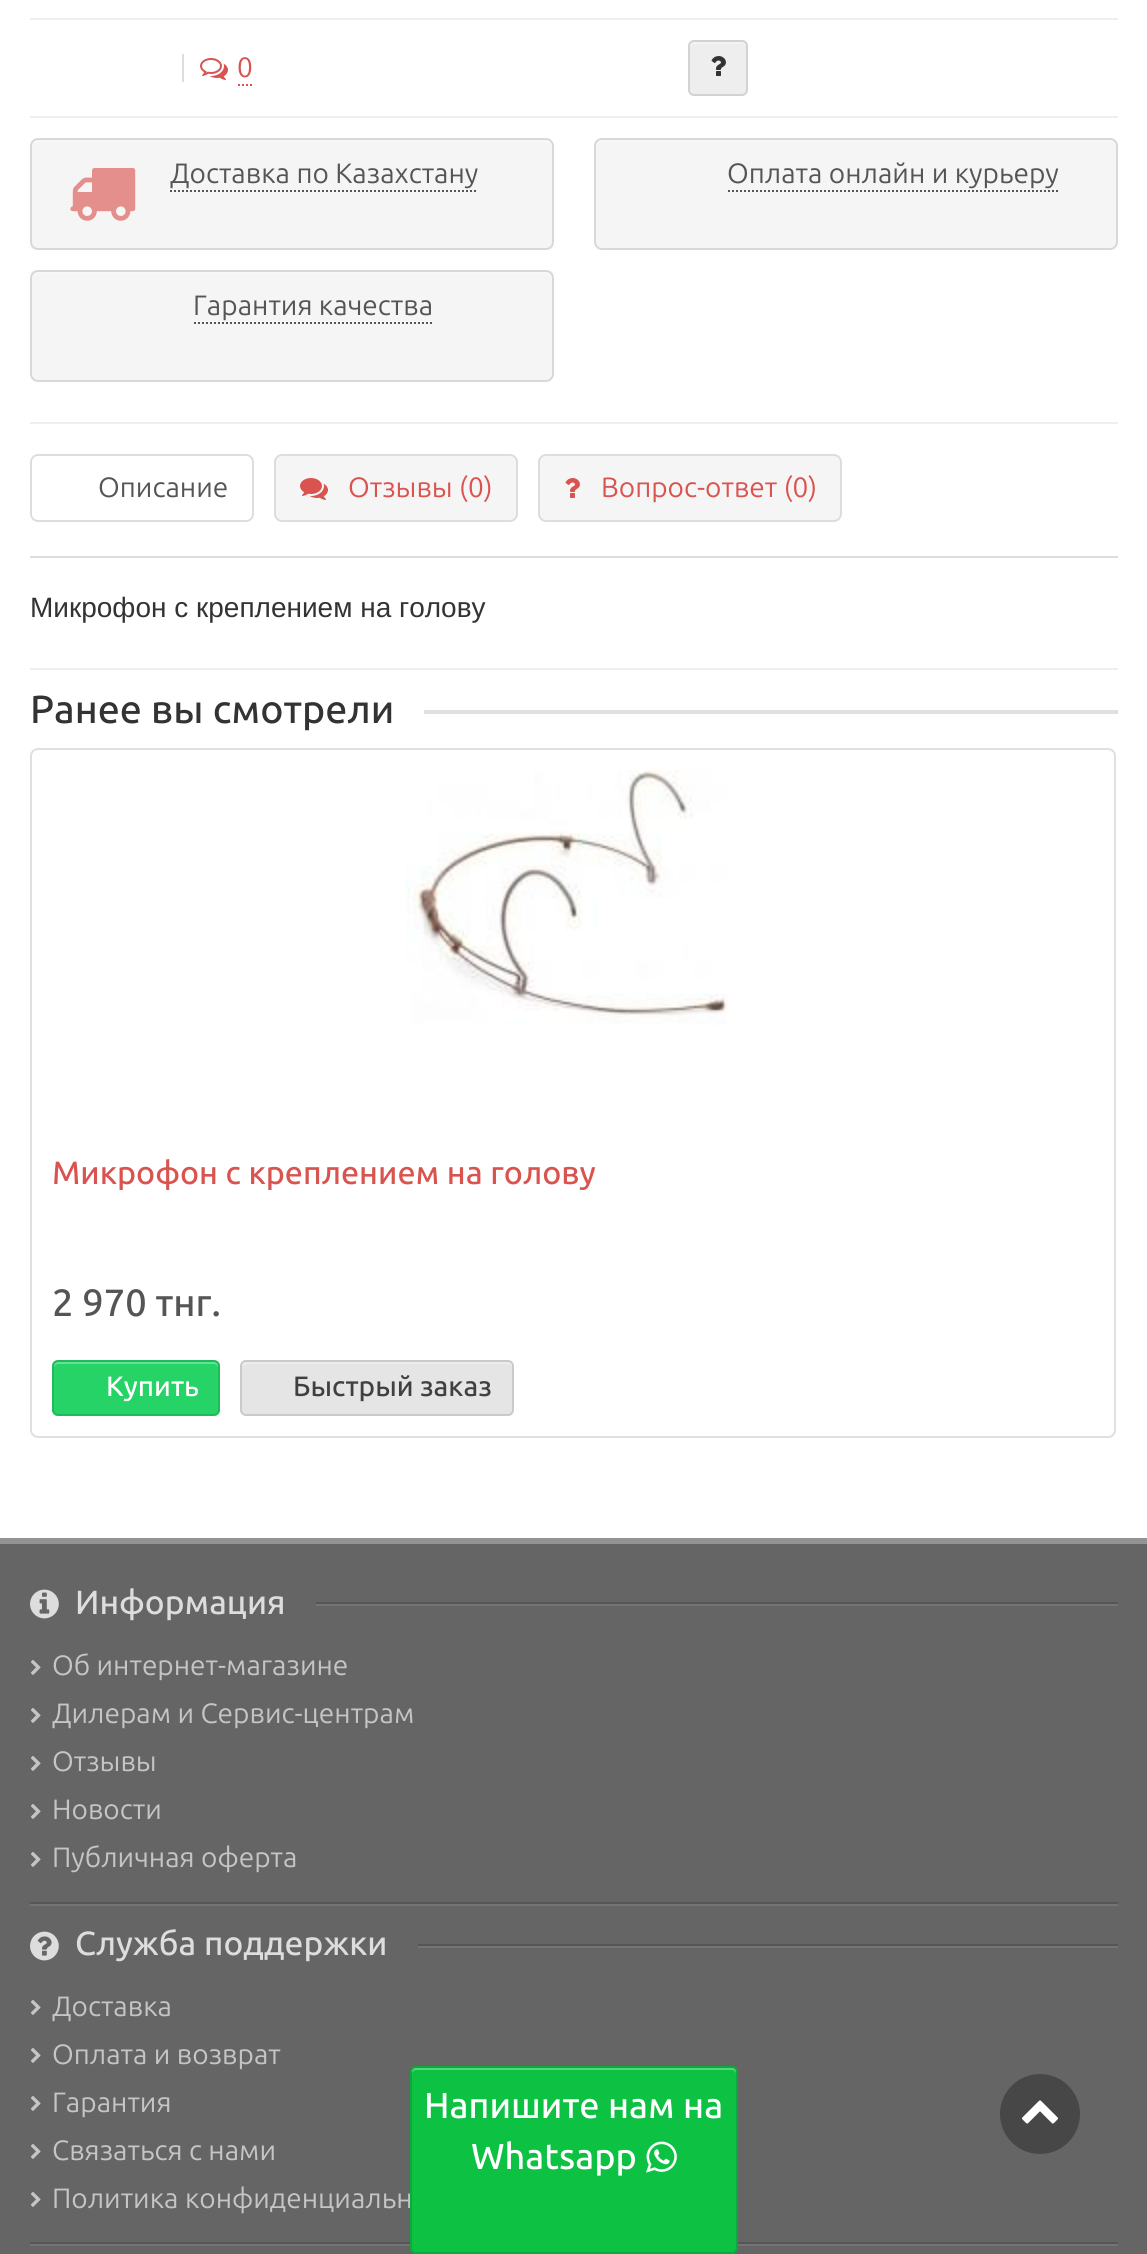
import math
import cairo


def use_color(cr, r, g, b):
  cr.set_source_rgb(r / 255, g / 255, b / 255)

def text(cr, x, y, s, family, size, color, bold=False, italic=False):
  cr.select_font_face(family, cairo.FONT_SLANT_ITALIC if italic else cairo.FONT_SLANT_NORMAL, cairo.FONT_WEIGHT_BOLD if bold else cairo.FONT_WEIGHT_NORMAL)
  cr.set_font_size(size)
  use_color(cr, *color)
  cr.move_to(x, y)
  cr.show_text(s)

def box(cr, x, y, w, h, *color):
  use_color(cr, *color)
  cr.rectangle(x, y, w, h)
  cr.fill()

def round_rect(cr, x, y, w, h, r):
  cr.new_sub_path()
  for i, (u, v) in enumerate([(x + w - r, y + h - r), (x + r, y + h - r), (x + r, y + r), (x + w - r, y + r)]):
    cr.arc(u, v, r, i * math.pi / 2, (i + 1) * math.pi / 2)
  cr.close_path()

def picture(cr, path, x, y, w, h):
  cr.save()
  cr.set_source_surface(cairo.ImageSurface.create_from_png(path), x, y)
  cr.rectangle(x, y, w, h)
  cr.fill()
  cr.restore()

def draw(cr):
  use_color(cr, 255, 255, 255)
  cr.paint()
  box(cr, 30, 18, 1088, 2, 238, 238, 238)
  box(cr, 182, 54, 2, 28, 221, 221, 221)
  picture(cr, "img_01.png", 200, 58, 28, 22)
  cr.new_path()
  cr.move_to(238, 85)
  cr.line_to(240, 85)
  cr.move_to(242, 85)
  cr.line_to(244, 85)
  cr.move_to(246, 85)
  cr.line_to(248, 85)
  cr.move_to(250, 85)
  cr.line_to(252, 85)
  use_color(cr, 217, 83, 79)
  cr.stroke()
  use_color(cr, 238, 238, 238)
  round_rect(cr, 688, 40, 60, 56, 6)
  cr.fill()
  use_color(cr, 243, 243, 243)
  cr.new_path()
  cr.move_to(694, 44)
  cr.line_to(742, 44)
  cr.curve_to(744, 44, 746, 46, 746, 48)
  cr.curve_to(746, 40, 741, 42, 734, 42)
  cr.line_to(702, 42)
  cr.curve_to(695, 42, 690, 40, 690, 48)
  cr.curve_to(690, 46, 692, 44, 694, 44)
  cr.close_path()
  cr.fill()
  round_rect(cr, 689, 41, 58, 54, 5)
  cr.set_source_rgba(0, 0, 0, 0.12)
  cr.stroke()
  picture(cr, "img_02.png", 711, 56, 15, 20)
  box(cr, 30, 116, 1088, 2, 238, 238, 238)
  use_color(cr, 245, 245, 245)
  round_rect(cr, 30, 138, 524, 112, 8)
  cr.fill()
  use_color(cr, 248, 248, 248)
  cr.new_path()
  cr.move_to(38, 142)
  cr.line_to(546, 142)
  cr.curve_to(549, 142, 552, 145, 552, 148)
  cr.line_to(552, 146)
  cr.curve_to(552, 143, 549, 140, 546, 140)
  cr.line_to(38, 140)
  cr.curve_to(35, 140, 32, 143, 32, 146)
  cr.line_to(32, 148)
  cr.curve_to(32, 145, 35, 142, 38, 142)
  cr.close_path()
  cr.fill()
  round_rect(cr, 31, 139, 522, 110, 7)
  cr.set_source_rgba(0, 0, 0, 0.12)
  cr.stroke()
  picture(cr, "img_03.png", 70, 168, 66, 53)
  cr.new_path()
  cr.move_to(170, 191)
  cr.line_to(478, 191)
  use_color(cr, 85, 85, 85)
  cr.set_dash([2, 2])
  cr.stroke()
  use_color(cr, 245, 245, 245)
  round_rect(cr, 594, 138, 524, 112, 8)
  cr.fill()
  use_color(cr, 248, 248, 248)
  cr.new_path()
  cr.move_to(602, 142)
  cr.line_to(1110, 142)
  cr.curve_to(1113, 142, 1116, 145, 1116, 148)
  cr.line_to(1116, 146)
  cr.curve_to(1116, 143, 1113, 140, 1110, 140)
  cr.line_to(602, 140)
  cr.curve_to(599, 140, 596, 143, 596, 146)
  cr.line_to(596, 148)
  cr.curve_to(596, 145, 599, 142, 602, 142)
  cr.close_path()
  cr.fill()
  round_rect(cr, 595, 139, 522, 110, 7)
  cr.set_source_rgba(0, 0, 0, 0.12)
  cr.set_dash([])
  cr.stroke()
  cr.new_path()
  cr.move_to(728, 191)
  cr.line_to(1058, 191)
  use_color(cr, 85, 85, 85)
  cr.set_dash([2, 2])
  cr.stroke()
  use_color(cr, 245, 245, 245)
  round_rect(cr, 30, 270, 524, 112, 8)
  cr.fill()
  use_color(cr, 248, 248, 248)
  cr.new_path()
  cr.move_to(38, 274)
  cr.line_to(546, 274)
  cr.curve_to(549, 274, 552, 277, 552, 280)
  cr.line_to(552, 278)
  cr.curve_to(552, 275, 549, 272, 546, 272)
  cr.line_to(38, 272)
  cr.curve_to(35, 272, 32, 275, 32, 278)
  cr.line_to(32, 280)
  cr.curve_to(32, 277, 35, 274, 38, 274)
  cr.close_path()
  cr.fill()
  round_rect(cr, 31, 271, 522, 110, 7)
  cr.set_source_rgba(0, 0, 0, 0.12)
  cr.set_dash([])
  cr.stroke()
  cr.new_path()
  cr.move_to(194, 323)
  cr.line_to(434, 323)
  use_color(cr, 85, 85, 85)
  cr.set_dash([2, 2])
  cr.stroke()
  box(cr, 30, 422, 1088, 2, 238, 238, 238)
  box(cr, 30, 556, 1088, 2, 221, 221, 221)
  round_rect(cr, 31, 455, 222, 66, 7)
  cr.set_dash([])
  cr.stroke()
  use_color(cr, 245, 245, 245)
  round_rect(cr, 275, 455, 242, 66, 7)
  cr.fill_preserve()
  use_color(cr, 221, 221, 221)
  cr.stroke()
  picture(cr, "img_04.png", 300, 478, 28, 22)
  use_color(cr, 245, 245, 245)
  round_rect(cr, 539, 455, 302, 66, 7)
  cr.fill_preserve()
  use_color(cr, 221, 221, 221)
  cr.stroke()
  picture(cr, "img_05.png", 565, 478, 15, 20)
  box(cr, 30, 668, 1088, 2, 238, 238, 238)
  box(cr, 424, 710, 694, 4, 224, 224, 224)
  round_rect(cr, 31, 749, 1084, 688, 7)
  cr.stroke()
  picture(cr, "img_06.png", 406, 770, 322, 255)
  use_color(cr, 37, 211, 102)
  round_rect(cr, 52, 1360, 168, 56, 6)
  cr.fill()
  use_color(cr, 102, 224, 148)
  cr.new_path()
  cr.move_to(58, 1364)
  cr.line_to(214, 1364)
  cr.curve_to(216, 1364, 218, 1366, 218, 1368)
  cr.line_to(218, 1366)
  cr.curve_to(218, 1364, 216, 1362, 214, 1362)
  cr.line_to(58, 1362)
  cr.curve_to(56, 1362, 54, 1364, 54, 1366)
  cr.line_to(54, 1368)
  cr.curve_to(54, 1366, 56, 1364, 58, 1364)
  cr.close_path()
  cr.fill()
  round_rect(cr, 53, 1361, 166, 54, 5)
  cr.set_source_rgba(0, 0, 0, 0.12)
  cr.stroke()
  use_color(cr, 229, 229, 229)
  round_rect(cr, 240, 1360, 274, 56, 6)
  cr.fill()
  use_color(cr, 237, 237, 237)
  cr.new_path()
  cr.move_to(246, 1364)
  cr.line_to(508, 1364)
  cr.curve_to(510, 1364, 512, 1366, 512, 1368)
  cr.curve_to(512, 1365, 512, 1362, 508, 1362)
  cr.line_to(246, 1362)
  cr.curve_to(242, 1362, 242, 1365, 242, 1368)
  cr.curve_to(242, 1366, 244, 1364, 246, 1364)
  cr.close_path()
  cr.fill()
  round_rect(cr, 241, 1361, 272, 54, 5)
  cr.set_source_rgba(0, 0, 0, 0.12)
  cr.stroke()
  box(cr, 0, 1544, 1147, 710, 101, 101, 101)
  use_color(cr, 71, 71, 71)
  cr.arc(1040, 2114, 40, 0, 2 * math.pi)
  cr.fill()
  picture(cr, "img_07.png", 1022, 2100, 36, 24)
  box(cr, 0, 1538, 1147, 6, 147, 147, 147)
  picture(cr, "img_08.png", 30, 1589, 29, 30)
  box(cr, 316, 1602, 802, 2, 86, 86, 86)
  box(cr, 316, 1604, 802, 2, 116, 116, 116)
  picture(cr, "img_09.png", 30, 1660, 11, 15)
  picture(cr, "img_09.png", 30, 1708, 11, 15)
  picture(cr, "img_09.png", 30, 1756, 11, 15)
  picture(cr, "img_09.png", 30, 1804, 11, 15)
  picture(cr, "img_09.png", 30, 1852, 11, 15)
  box(cr, 30, 1902, 1088, 2, 86, 86, 86)
  box(cr, 30, 1904, 1088, 2, 116, 116, 116)
  picture(cr, "img_10.png", 30, 1931, 29, 30)
  box(cr, 418, 1944, 700, 2, 86, 86, 86)
  box(cr, 418, 1946, 700, 2, 116, 116, 116)
  picture(cr, "img_09.png", 30, 2000, 11, 15)
  picture(cr, "img_09.png", 30, 2048, 11, 15)
  picture(cr, "img_09.png", 30, 2096, 11, 15)
  picture(cr, "img_09.png", 30, 2144, 11, 15)
  picture(cr, "img_09.png", 30, 2192, 11, 15)
  box(cr, 30, 2242, 1088, 2, 86, 86, 86)
  box(cr, 30, 2244, 1088, 2, 116, 116, 116)
  text(cr, 237, 77, "0", "Ubuntu", 28, (217, 83, 79))
  text(cr, 170, 183, "Доставка по Казахстану", "Ubuntu", 28, (85, 85, 85))
  text(cr, 727, 183, "Оплата онлайн и курьеру", "Ubuntu", 28, (85, 85, 85))
  text(cr, 193, 315, "Гарантия качества", "Ubuntu", 28, (85, 85, 85))
  text(cr, 98, 497, "Описание", "Ubuntu", 28, (85, 85, 85))
  text(cr, 348, 497, "Отзывы (0)", "Ubuntu", 28, (217, 83, 79))
  text(cr, 601, 497, "Вопрос-ответ (0)", "Ubuntu", 28, (217, 83, 79))
  text(cr, 30, 617, "Микрофон с креплением на голову", "Liberation Sans", 28, (51, 51, 51))
  text(cr, 30, 723, "Ранее вы смотрели", "Ubuntu Medium", 39.25, (51, 51, 51))
  text(cr, 52, 1184, "Микрофон с креплением на голову", "Ubuntu Medium", 32.25, (217, 83, 79))
  text(cr, 52, 1316, "2 970 тнг.", "Ubuntu Medium", 38, (85, 85, 85))
  text(cr, 106, 1396, "Купить", "Ubuntu Medium", 28, (255, 255, 255))
  text(cr, 293, 1396, "Быстрый заказ", "Ubuntu Medium", 28, (64, 64, 64))
  text(cr, 75, 1614, "Информация", "Ubuntu Medium", 33.5, (221, 221, 221))
  text(cr, 52, 1675, "Об интернет-магазине", "Ubuntu", 28, (197, 197, 197))
  text(cr, 52, 1723, "Дилерам и Сервис-центрам", "Ubuntu", 28, (197, 197, 197))
  text(cr, 52, 1771, "Отзывы", "Ubuntu", 28, (197, 197, 197))
  text(cr, 52, 1819, "Новости", "Ubuntu", 28, (197, 197, 197))
  text(cr, 52, 1867, "Публичная оферта", "Ubuntu", 28, (197, 197, 197))
  text(cr, 75, 1955, "Служба поддержки", "Ubuntu Medium", 33.5, (221, 221, 221))
  text(cr, 52, 2016, "Доставка", "Ubuntu", 28, (197, 197, 197))
  text(cr, 52, 2064, "Оплата и возврат", "Ubuntu", 28, (197, 197, 197))
  text(cr, 52, 2112, "Гарантия", "Ubuntu", 28, (197, 197, 197))
  text(cr, 52, 2160, "Связаться с нами", "Ubuntu", 28, (197, 197, 197))
  text(cr, 52, 2208, "Политика конфиденциальн", "Ubuntu", 28, (197, 197, 197))
  use_color(cr, 13, 193, 67)
  round_rect(cr, 410, 2066, 328, 188, 6)
  cr.fill()
  use_color(cr, 86, 212, 123)
  cr.new_path()
  cr.move_to(416, 2070)
  cr.line_to(732, 2070)
  cr.curve_to(734, 2070, 736, 2072, 736, 2074)
  cr.curve_to(736, 2071, 736, 2068, 732, 2068)
  cr.line_to(416, 2068)
  cr.curve_to(412, 2068, 412, 2071, 412, 2074)
  cr.curve_to(412, 2072, 414, 2070, 416, 2070)
  cr.close_path()
  cr.fill()
  round_rect(cr, 411, 2067, 326, 186, 5)
  cr.set_source_rgba(0, 0, 0, 0.12)
  cr.stroke()
  text(cr, 424, 2118, "Напишите нам на", "Ubuntu Medium", 36, (255, 255, 255))
  text(cr, 471, 2169, "Whatsapp", "Ubuntu Medium", 36, (255, 255, 255))
  picture(cr, "img_11.png", 646, 2141, 31, 32)


surface = cairo.ImageSurface(cairo.FORMAT_RGB24, 1147, 2254)
cr = cairo.Context(surface)
options = cairo.FontOptions()
options.set_hint_metrics(cairo.HINT_METRICS_OFF)
options.set_hint_style(cairo.HINT_STYLE_NONE)
cr.set_font_options(options)
cr.set_miter_limit(4)
draw(cr)
surface.write_to_png("out.png")
